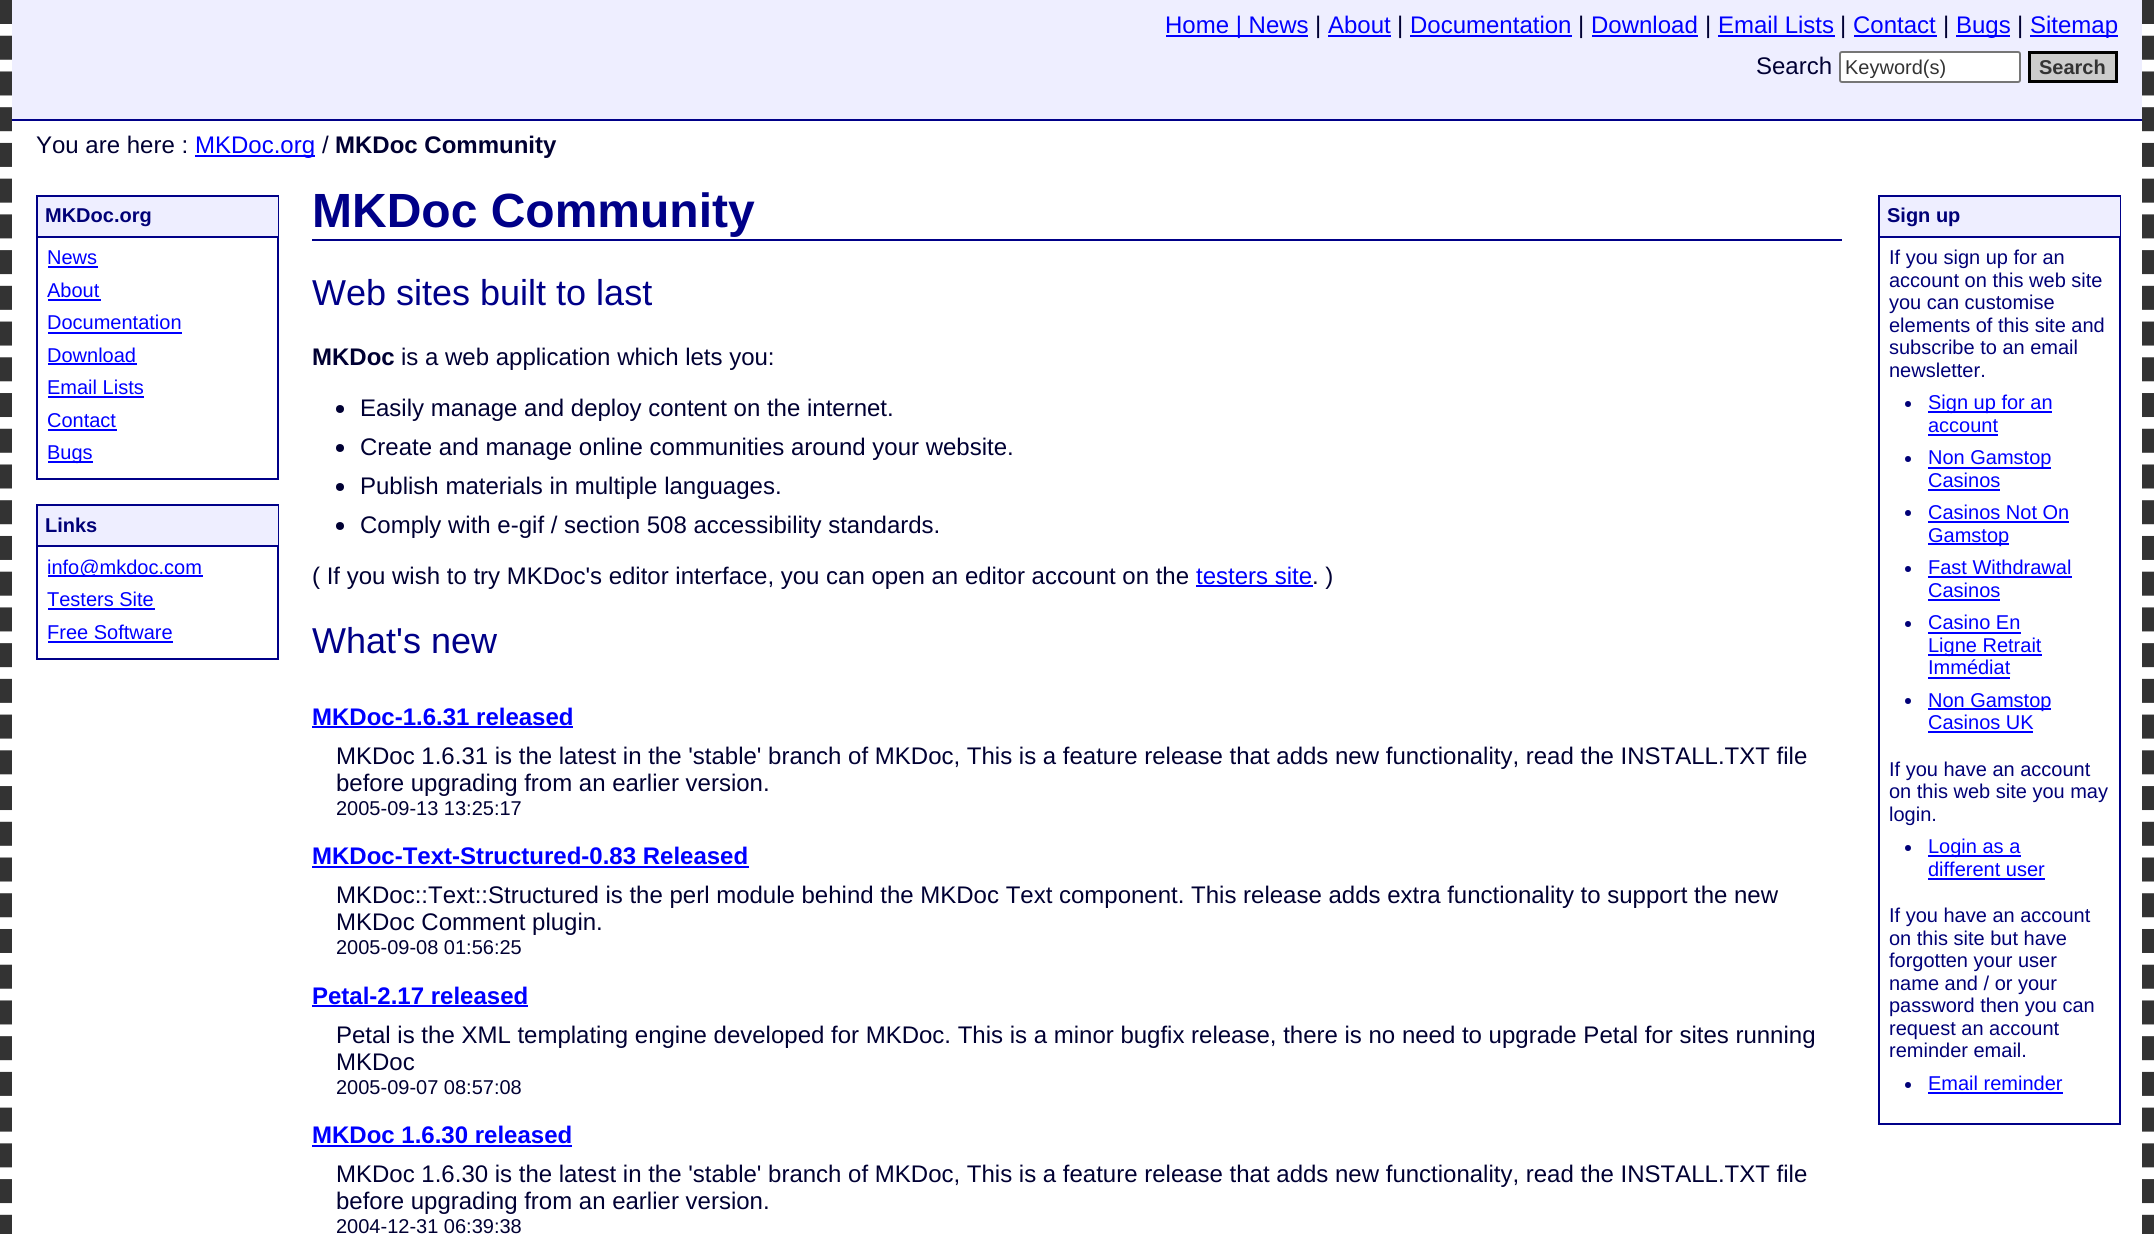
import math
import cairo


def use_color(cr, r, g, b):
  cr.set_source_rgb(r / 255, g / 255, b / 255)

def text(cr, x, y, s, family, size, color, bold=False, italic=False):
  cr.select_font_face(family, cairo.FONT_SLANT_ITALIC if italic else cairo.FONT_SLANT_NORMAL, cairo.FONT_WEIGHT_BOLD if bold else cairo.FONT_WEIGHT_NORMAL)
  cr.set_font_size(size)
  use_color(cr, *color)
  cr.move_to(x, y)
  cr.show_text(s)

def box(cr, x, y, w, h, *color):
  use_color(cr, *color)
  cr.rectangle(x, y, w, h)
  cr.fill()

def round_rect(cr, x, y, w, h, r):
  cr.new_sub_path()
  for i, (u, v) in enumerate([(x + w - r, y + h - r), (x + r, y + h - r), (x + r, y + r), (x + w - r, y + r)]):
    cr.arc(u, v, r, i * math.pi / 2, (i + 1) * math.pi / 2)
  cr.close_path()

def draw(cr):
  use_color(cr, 255, 255, 255)
  cr.paint()
  cr.new_path()
  cr.move_to(2148, 0)
  cr.line_to(2148, 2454)
  use_color(cr, 51, 51, 51)
  cr.set_line_width(12)
  cr.set_dash([24, 11.73])
  cr.stroke()
  cr.new_path()
  cr.move_to(6, 0)
  cr.line_to(6, 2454)
  cr.stroke()
  box(cr, 12, 0, 2130, 119, 238, 238, 255)
  box(cr, 1166, 35, 142, 2, 0, 0, 255)
  box(cr, 1328, 35, 63, 2, 0, 0, 255)
  box(cr, 1410, 35, 162, 2, 0, 0, 255)
  box(cr, 1592, 35, 106, 2, 0, 0, 255)
  box(cr, 1718, 35, 117, 2, 0, 0, 255)
  box(cr, 1854, 35, 83, 2, 0, 0, 255)
  box(cr, 1956, 35, 54, 2, 0, 0, 255)
  box(cr, 2030, 35, 88, 2, 0, 0, 255)
  box(cr, 12, 119, 2130, 2, 0, 0, 136)
  use_color(cr, 255, 255, 255)
  round_rect(cr, 1840, 52, 180, 30, 2)
  cr.fill_preserve()
  use_color(cr, 118, 118, 118)
  cr.set_line_width(2)
  cr.set_dash([])
  cr.stroke()
  use_color(cr, 204, 204, 204)
  cr.rectangle(2029.5, 52.5, 87, 29)
  cr.fill_preserve()
  use_color(cr, 0, 0, 0)
  cr.set_line_width(3)
  cr.stroke()
  box(cr, 195, 155, 120, 2, 0, 0, 255)
  cr.rectangle(37, 196, 241, 283)
  use_color(cr, 0, 0, 136)
  cr.set_line_width(2)
  cr.stroke()
  box(cr, 38, 197, 240, 39, 238, 238, 255)
  box(cr, 38, 236, 240, 2, 0, 0, 136)
  box(cr, 48, 266, 50, 2, 0, 0, 255)
  box(cr, 48, 299, 53, 2, 0, 0, 255)
  box(cr, 48, 332, 134, 2, 0, 0, 255)
  box(cr, 48, 363, 89, 2, 0, 0, 255)
  box(cr, 48, 396, 96, 2, 0, 0, 255)
  box(cr, 48, 429, 69, 2, 0, 0, 255)
  box(cr, 48, 461, 45, 2, 0, 0, 255)
  cr.rectangle(37, 505, 241, 154)
  use_color(cr, 0, 0, 136)
  cr.stroke()
  box(cr, 38, 506, 240, 39, 238, 238, 255)
  box(cr, 38, 545, 240, 2, 0, 0, 136)
  box(cr, 48, 575, 155, 2, 0, 0, 255)
  box(cr, 48, 608, 107, 2, 0, 0, 255)
  box(cr, 48, 641, 125, 2, 0, 0, 255)
  box(cr, 312, 239, 1530, 2, 0, 0, 136)
  use_color(cr, 0, 0, 51)
  cr.arc(340, 409, 4, 0, 2 * math.pi)
  cr.fill()
  cr.arc(340, 448, 4, 0, 2 * math.pi)
  cr.fill()
  cr.arc(340, 487, 4, 0, 2 * math.pi)
  cr.fill()
  cr.arc(340, 526, 4, 0, 2 * math.pi)
  cr.fill()
  box(cr, 1196, 585, 117, 2, 0, 0, 255)
  box(cr, 312, 726, 261, 2, 0, 0, 255)
  box(cr, 312, 866, 437, 2, 0, 0, 255)
  box(cr, 312, 1005, 216, 2, 0, 0, 255)
  box(cr, 312, 1145, 260, 2, 0, 0, 255)
  cr.rectangle(1879, 196, 241, 928)
  use_color(cr, 0, 0, 136)
  cr.stroke()
  box(cr, 1880, 197, 240, 39, 238, 238, 255)
  box(cr, 1880, 236, 240, 2, 0, 0, 136)
  use_color(cr, 0, 0, 119)
  cr.arc(1908, 404, 3, 0, 2 * math.pi)
  cr.fill()
  box(cr, 1928, 411, 124, 2, 0, 0, 255)
  box(cr, 1928, 434, 70, 2, 0, 0, 255)
  use_color(cr, 0, 0, 119)
  cr.arc(1908, 459, 3, 0, 2 * math.pi)
  cr.fill()
  box(cr, 1928, 467, 123, 2, 0, 0, 255)
  box(cr, 1928, 489, 72, 2, 0, 0, 255)
  use_color(cr, 0, 0, 119)
  cr.arc(1908, 513, 3, 0, 2 * math.pi)
  cr.fill()
  box(cr, 1928, 521, 141, 2, 0, 0, 255)
  box(cr, 1928, 543, 81, 2, 0, 0, 255)
  use_color(cr, 0, 0, 119)
  cr.arc(1908, 569, 3, 0, 2 * math.pi)
  cr.fill()
  box(cr, 1928, 576, 144, 2, 0, 0, 255)
  box(cr, 1928, 599, 72, 2, 0, 0, 255)
  use_color(cr, 0, 0, 119)
  cr.arc(1908, 624, 3, 0, 2 * math.pi)
  cr.fill()
  box(cr, 1928, 632, 93, 2, 0, 0, 255)
  box(cr, 1928, 654, 114, 2, 0, 0, 255)
  box(cr, 1928, 677, 82, 2, 0, 0, 255)
  use_color(cr, 0, 0, 119)
  cr.arc(1908, 701, 3, 0, 2 * math.pi)
  cr.fill()
  box(cr, 1928, 708, 123, 2, 0, 0, 255)
  box(cr, 1928, 731, 105, 2, 0, 0, 255)
  use_color(cr, 0, 0, 119)
  cr.arc(1908, 848, 3, 0, 2 * math.pi)
  cr.fill()
  box(cr, 1928, 855, 93, 2, 0, 0, 255)
  box(cr, 1928, 878, 117, 2, 0, 0, 255)
  use_color(cr, 0, 0, 119)
  cr.arc(1908, 1085, 3, 0, 2 * math.pi)
  cr.fill()
  box(cr, 1928, 1092, 135, 2, 0, 0, 255)
  text(cr, 1165, 33, "Home | News", "Liberation Sans", 24, (0, 0, 255))
  text(cr, 1315, 33, "|", "Liberation Sans", 24, (0, 0, 51))
  text(cr, 1328, 33, "About", "Liberation Sans", 24, (0, 0, 255))
  text(cr, 1397, 33, "|", "Liberation Sans", 24, (0, 0, 51))
  text(cr, 1410, 33, "Documentation", "Liberation Sans", 24, (0, 0, 255))
  text(cr, 1578, 33, "|", "Liberation Sans", 24, (0, 0, 51))
  text(cr, 1591, 33, "Download", "Liberation Sans", 24, (0, 0, 255))
  text(cr, 1705, 33, "|", "Liberation Sans", 24, (0, 0, 51))
  text(cr, 1718, 33, "Email Lists", "Liberation Sans", 24, (0, 0, 255))
  text(cr, 1840, 33, "|", "Liberation Sans", 24, (0, 0, 51))
  text(cr, 1853, 33, "Contact", "Liberation Sans", 24, (0, 0, 255))
  text(cr, 1943, 33, "|", "Liberation Sans", 24, (0, 0, 51))
  text(cr, 1956, 33, "Bugs", "Liberation Sans", 24, (0, 0, 255))
  text(cr, 2017, 33, "|", "Liberation Sans", 24, (0, 0, 51))
  text(cr, 2030, 33, "Sitemap", "Liberation Sans", 24, (0, 0, 255))
  text(cr, 1756, 74, "Search", "Liberation Sans", 24, (0, 0, 51))
  cr.save()
  cr.rectangle(1845, 56, 170, 22)
  cr.clip()
  text(cr, 1845, 74, "Keyword(s)", "Liberation Sans", 20, (51, 51, 51))
  cr.restore()
  text(cr, 2039, 74, "Search", "Liberation Sans", 20, (51, 51, 51), bold=True)
  text(cr, 36, 153, "You are here :", "Liberation Sans", 24, (0, 0, 51))
  text(cr, 195, 153, "MKDoc.org", "Liberation Sans", 24, (0, 0, 255))
  text(cr, 322, 153, "/", "Liberation Sans", 24, (0, 0, 51))
  text(cr, 335, 153, "MKDoc Community", "Liberation Sans", 24, (0, 0, 51), bold=True)
  text(cr, 45, 222, "MKDoc.org", "Liberation Sans", 20, (0, 0, 119), bold=True)
  text(cr, 47, 264, "News", "Liberation Sans", 20, (0, 0, 255))
  text(cr, 47, 297, "About", "Liberation Sans", 20, (0, 0, 255))
  text(cr, 47, 329, "Documentation", "Liberation Sans", 20, (0, 0, 255))
  text(cr, 47, 362, "Download", "Liberation Sans", 20, (0, 0, 255))
  text(cr, 47, 394, "Email Lists", "Liberation Sans", 20, (0, 0, 255))
  text(cr, 47, 427, "Contact", "Liberation Sans", 20, (0, 0, 255))
  text(cr, 47, 459, "Bugs", "Liberation Sans", 20, (0, 0, 255))
  text(cr, 45, 532, "Links", "Liberation Sans", 20, (0, 0, 119), bold=True)
  text(cr, 47, 574, "info@mkdoc.com", "Liberation Sans", 20, (0, 0, 255))
  text(cr, 47, 606, "Testers Site", "Liberation Sans", 20, (0, 0, 255))
  text(cr, 47, 639, "Free Software", "Liberation Sans", 20, (0, 0, 255))
  text(cr, 312, 227, "MKDoc Community", "Liberation Sans", 48, (0, 0, 136), bold=True)
  text(cr, 312, 305, "Web sites built to last", "Liberation Sans", 36, (0, 0, 136))
  text(cr, 312, 365, "MKDoc", "Liberation Sans", 24, (0, 0, 51), bold=True)
  text(cr, 401, 365, "is a web application which lets you:", "Liberation Sans", 24, (0, 0, 51))
  text(cr, 360, 416, "Easily manage and deploy content on the internet.", "Liberation Sans", 24, (0, 0, 51))
  text(cr, 360, 455, "Create and manage online communities around your website.", "Liberation Sans", 24, (0, 0, 51))
  text(cr, 360, 494, "Publish materials in multiple languages.", "Liberation Sans", 24, (0, 0, 51))
  text(cr, 360, 533, "Comply with e-gif / section 508 accessibility standards.", "Liberation Sans", 24, (0, 0, 51))
  text(cr, 312, 584, "( If you wish to try MKDoc's editor interface, you can open an editor account on the", "Liberation Sans", 24, (0, 0, 51))
  text(cr, 1196, 584, "testers site", "Liberation Sans", 24, (0, 0, 255))
  text(cr, 1312, 584, ". )", "Liberation Sans", 24, (0, 0, 51))
  text(cr, 312, 653, "What's new", "Liberation Sans", 36, (0, 0, 136))
  text(cr, 312, 725, "MKDoc-1.6.31 released", "Liberation Sans", 24, (0, 0, 255), bold=True)
  text(cr, 336, 764, "MKDoc 1.6.31 is the latest in the 'stable' branch of MKDoc, This is a feature release that adds new functionality, read the INSTALL.TXT file", "Liberation Sans", 24, (0, 0, 51))
  text(cr, 336, 791, "before upgrading from an earlier version.", "Liberation Sans", 24, (0, 0, 51))
  text(cr, 336, 815, "2005-09-13 13:25:17", "Liberation Sans", 20, (0, 0, 51))
  text(cr, 312, 864, "MKDoc-Text-Structured-0.83 Released", "Liberation Sans", 24, (0, 0, 255), bold=True)
  text(cr, 336, 903, "MKDoc::Text::Structured is the perl module behind the MKDoc Text component. This release adds extra functionality to support the new", "Liberation Sans", 24, (0, 0, 51))
  text(cr, 336, 930, "MKDoc Comment plugin.", "Liberation Sans", 24, (0, 0, 51))
  text(cr, 336, 954, "2005-09-08 01:56:25", "Liberation Sans", 20, (0, 0, 51))
  text(cr, 312, 1004, "Petal-2.17 released", "Liberation Sans", 24, (0, 0, 255), bold=True)
  text(cr, 336, 1043, "Petal is the XML templating engine developed for MKDoc. This is a minor bugfix release, there is no need to upgrade Petal for sites running", "Liberation Sans", 24, (0, 0, 51))
  text(cr, 336, 1070, "MKDoc", "Liberation Sans", 24, (0, 0, 51))
  text(cr, 336, 1094, "2005-09-07 08:57:08", "Liberation Sans", 20, (0, 0, 51))
  text(cr, 312, 1143, "MKDoc 1.6.30 released", "Liberation Sans", 24, (0, 0, 255), bold=True)
  text(cr, 336, 1182, "MKDoc 1.6.30 is the latest in the 'stable' branch of MKDoc, This is a feature release that adds new functionality, read the INSTALL.TXT file", "Liberation Sans", 24, (0, 0, 51))
  text(cr, 336, 1209, "before upgrading from an earlier version.", "Liberation Sans", 24, (0, 0, 51))
  text(cr, 336, 1233, "2004-12-31 06:39:38", "Liberation Sans", 20, (0, 0, 51))
  text(cr, 1887, 222, "Sign up", "Liberation Sans", 20, (0, 0, 119), bold=True)
  text(cr, 1889, 264, "If you sign up for an", "Liberation Sans", 20, (0, 0, 119))
  text(cr, 1889, 287, "account on this web site", "Liberation Sans", 20, (0, 0, 119))
  text(cr, 1889, 309, "you can customise", "Liberation Sans", 20, (0, 0, 119))
  text(cr, 1889, 332, "elements of this site and", "Liberation Sans", 20, (0, 0, 119))
  text(cr, 1889, 354, "subscribe to an email", "Liberation Sans", 20, (0, 0, 119))
  text(cr, 1889, 377, "newsletter.", "Liberation Sans", 20, (0, 0, 119))
  text(cr, 1928, 409, "Sign up for an", "Liberation Sans", 20, (0, 0, 255))
  text(cr, 1928, 432, "account", "Liberation Sans", 20, (0, 0, 255))
  text(cr, 1928, 464, "Non Gamstop", "Liberation Sans", 20, (0, 0, 255))
  text(cr, 1928, 487, "Casinos", "Liberation Sans", 20, (0, 0, 255))
  text(cr, 1928, 519, "Casinos Not On", "Liberation Sans", 20, (0, 0, 255))
  text(cr, 1928, 542, "Gamstop", "Liberation Sans", 20, (0, 0, 255))
  text(cr, 1928, 574, "Fast Withdrawal", "Liberation Sans", 20, (0, 0, 255))
  text(cr, 1928, 597, "Casinos", "Liberation Sans", 20, (0, 0, 255))
  text(cr, 1928, 629, "Casino En", "Liberation Sans", 20, (0, 0, 255))
  text(cr, 1928, 652, "Ligne Retrait", "Liberation Sans", 20, (0, 0, 255))
  text(cr, 1928, 674, "Immédiat", "Liberation Sans", 20, (0, 0, 255))
  text(cr, 1928, 707, "Non Gamstop", "Liberation Sans", 20, (0, 0, 255))
  text(cr, 1928, 729, "Casinos UK", "Liberation Sans", 20, (0, 0, 255))
  text(cr, 1889, 776, "If you have an account", "Liberation Sans", 20, (0, 0, 119))
  text(cr, 1889, 798, "on this web site you may", "Liberation Sans", 20, (0, 0, 119))
  text(cr, 1889, 821, "login.", "Liberation Sans", 20, (0, 0, 119))
  text(cr, 1928, 853, "Login as a", "Liberation Sans", 20, (0, 0, 255))
  text(cr, 1928, 876, "different user", "Liberation Sans", 20, (0, 0, 255))
  text(cr, 1889, 922, "If you have an account", "Liberation Sans", 20, (0, 0, 119))
  text(cr, 1889, 945, "on this site but have", "Liberation Sans", 20, (0, 0, 119))
  text(cr, 1889, 967, "forgotten your user", "Liberation Sans", 20, (0, 0, 119))
  text(cr, 1889, 990, "name and / or your", "Liberation Sans", 20, (0, 0, 119))
  text(cr, 1889, 1012, "password then you can", "Liberation Sans", 20, (0, 0, 119))
  text(cr, 1889, 1035, "request an account", "Liberation Sans", 20, (0, 0, 119))
  text(cr, 1889, 1057, "reminder email.", "Liberation Sans", 20, (0, 0, 119))
  text(cr, 1928, 1090, "Email reminder", "Liberation Sans", 20, (0, 0, 255))


surface = cairo.ImageSurface(cairo.FORMAT_RGB24, 2154, 1234)
cr = cairo.Context(surface)
options = cairo.FontOptions()
options.set_hint_metrics(cairo.HINT_METRICS_OFF)
options.set_hint_style(cairo.HINT_STYLE_NONE)
cr.set_font_options(options)
cr.set_miter_limit(4)
draw(cr)
surface.write_to_png("out.png")
